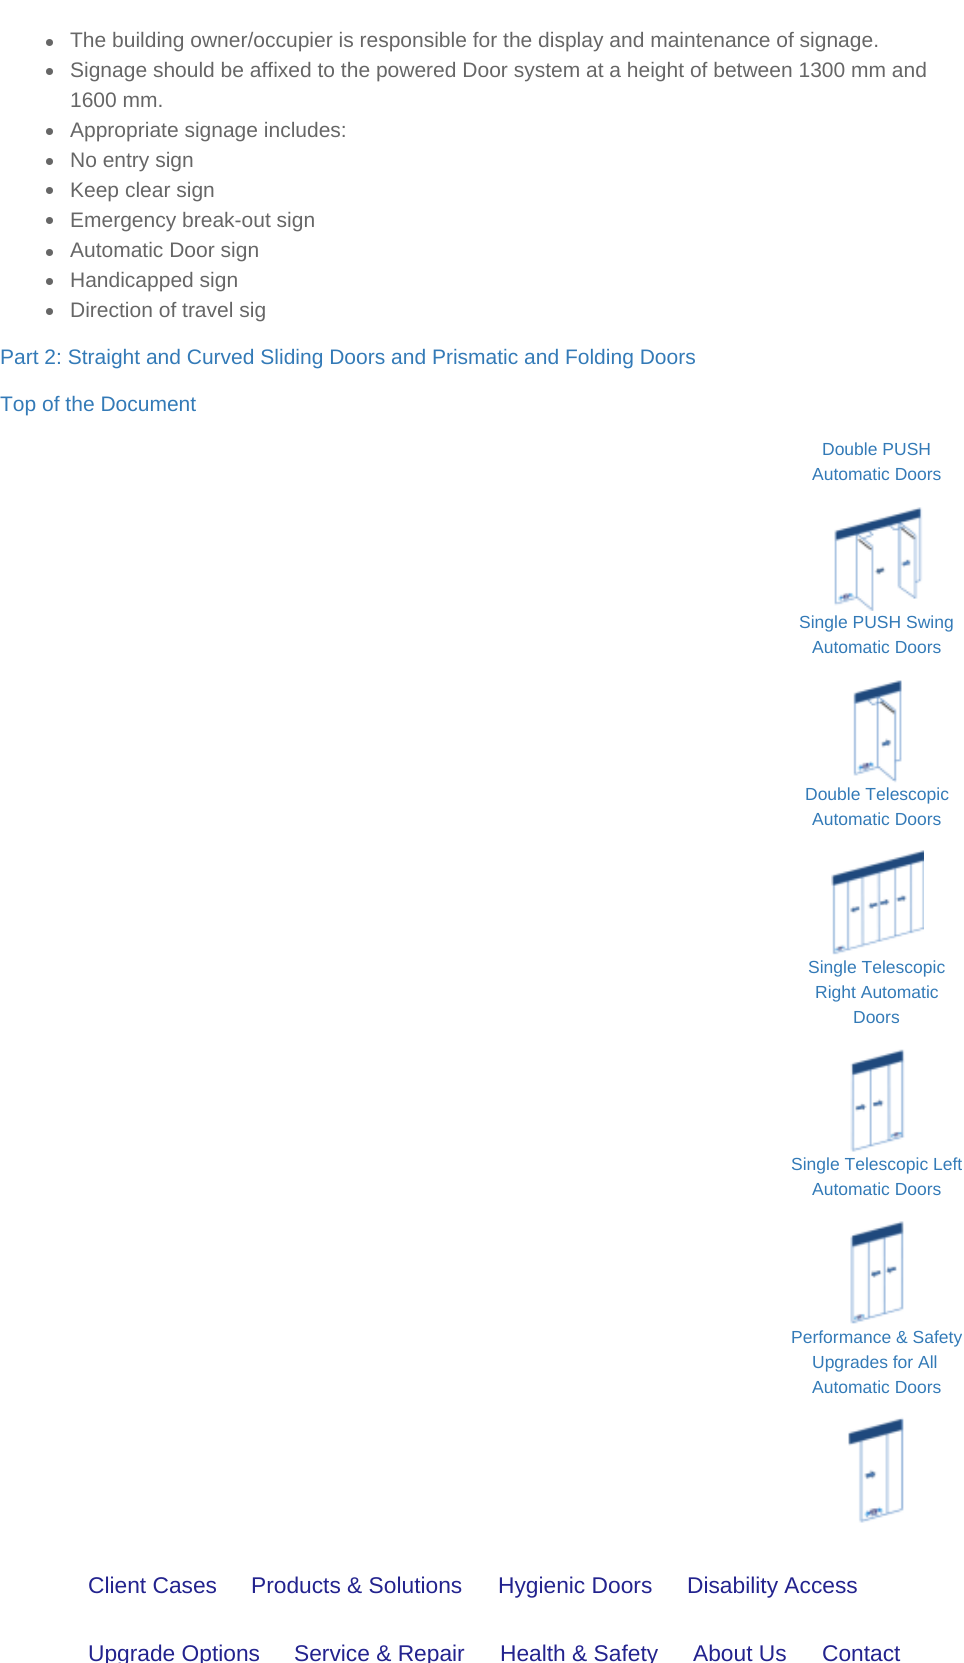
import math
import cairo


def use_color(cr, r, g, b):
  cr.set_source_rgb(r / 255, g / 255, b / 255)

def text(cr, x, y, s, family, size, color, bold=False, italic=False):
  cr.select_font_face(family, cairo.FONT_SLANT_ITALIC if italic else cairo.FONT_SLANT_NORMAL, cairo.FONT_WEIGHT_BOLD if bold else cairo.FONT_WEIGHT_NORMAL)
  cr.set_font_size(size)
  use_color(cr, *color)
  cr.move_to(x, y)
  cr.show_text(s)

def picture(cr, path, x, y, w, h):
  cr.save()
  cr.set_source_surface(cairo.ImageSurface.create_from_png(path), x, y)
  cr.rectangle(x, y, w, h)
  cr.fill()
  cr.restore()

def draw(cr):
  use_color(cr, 255, 255, 255)
  cr.paint()
  use_color(cr, 102, 102, 102)
  cr.arc(49.5, 42.5, 3.5, 0, 2 * math.pi)
  cr.fill()
  cr.arc(49.5, 71.5, 3.5, 0, 2 * math.pi)
  cr.fill()
  cr.arc(49.5, 131.5, 3.5, 0, 2 * math.pi)
  cr.fill()
  cr.arc(49.5, 161.5, 3.5, 0, 2 * math.pi)
  cr.fill()
  cr.arc(49.5, 190.5, 3.5, 0, 2 * math.pi)
  cr.fill()
  cr.arc(49.5, 220.5, 3.5, 0, 2 * math.pi)
  cr.fill()
  cr.arc(49.5, 252.5, 3.5, 0, 2 * math.pi)
  cr.fill()
  cr.arc(49.5, 281.5, 3.5, 0, 2 * math.pi)
  cr.fill()
  cr.arc(49.5, 311.5, 3.5, 0, 2 * math.pi)
  cr.fill()
  picture(cr, "img_01.png", 834, 507, 89, 104)
  picture(cr, "img_02.png", 853, 680, 49, 103)
  picture(cr, "img_03.png", 831, 850, 93, 105)
  picture(cr, "img_04.png", 850, 1049, 55, 103)
  picture(cr, "img_05.png", 850, 1221, 54, 103)
  picture(cr, "img_06.png", 848, 1417, 56, 106)
  text(cr, 70, 47, "The building owner/occupier is responsible for the display and maintenance of signage.", "Liberation Sans", 21, (102, 102, 102))
  text(cr, 70, 77, "Signage should be affixed to the powered Door system at a height of between 1300 mm and", "Liberation Sans", 21, (102, 102, 102))
  text(cr, 70, 107, "1600 mm.", "Liberation Sans", 21, (102, 102, 102))
  text(cr, 70, 137, "Appropriate signage includes:", "Liberation Sans", 21, (102, 102, 102))
  text(cr, 70, 167, "No entry sign", "Liberation Sans", 21, (102, 102, 102))
  text(cr, 70, 197, "Keep clear sign", "Liberation Sans", 21, (102, 102, 102))
  text(cr, 70, 227, "Emergency break-out sign", "Liberation Sans", 21, (102, 102, 102))
  text(cr, 70, 257, "Automatic Door sign", "Liberation Sans", 21, (102, 102, 102))
  text(cr, 70, 287, "Handicapped sign", "Liberation Sans", 21, (102, 102, 102))
  text(cr, 70, 317, "Direction of travel sig", "Liberation Sans", 21, (102, 102, 102))
  text(cr, 0, 364, "Part 2: Straight and Curved Sliding Doors and Prismatic and Folding Doors", "Liberation Sans", 21, (51, 122, 183))
  text(cr, 0, 411, "Top of the Document", "Liberation Sans", 21, (51, 122, 183))
  text(cr, 822, 455, "Double PUSH", "Liberation Sans", 17.5, (51, 122, 183))
  text(cr, 812, 480, "Automatic Doors", "Liberation Sans", 17.5, (51, 122, 183))
  text(cr, 799, 628, "Single PUSH Swing", "Liberation Sans", 17.5, (51, 122, 183))
  text(cr, 812, 653, "Automatic Doors", "Liberation Sans", 17.5, (51, 122, 183))
  text(cr, 805, 800, "Double Telescopic", "Liberation Sans", 17.5, (51, 122, 183))
  text(cr, 812, 825, "Automatic Doors", "Liberation Sans", 17.5, (51, 122, 183))
  text(cr, 808, 973, "Single Telescopic", "Liberation Sans", 17.5, (51, 122, 183))
  text(cr, 815, 998, "Right Automatic", "Liberation Sans", 17.5, (51, 122, 183))
  text(cr, 853, 1023, "Doors", "Liberation Sans", 17.5, (51, 122, 183))
  text(cr, 791, 1170, "Single Telescopic Left", "Liberation Sans", 17.5, (51, 122, 183))
  text(cr, 812, 1195, "Automatic Doors", "Liberation Sans", 17.5, (51, 122, 183))
  text(cr, 791, 1343, "Performance & Safety", "Liberation Sans", 17.5, (51, 122, 183))
  text(cr, 812, 1368, "Upgrades for All", "Liberation Sans", 17.5, (51, 122, 183))
  text(cr, 812, 1393, "Automatic Doors", "Liberation Sans", 17.5, (51, 122, 183))
  text(cr, 88, 1593, "Client Cases", "Liberation Sans", 22.75, (35, 35, 142))
  text(cr, 251, 1593, "Products & Solutions", "Liberation Sans", 22.75, (35, 35, 142))
  text(cr, 498, 1593, "Hygienic Doors", "Liberation Sans", 22.75, (35, 35, 142))
  text(cr, 687, 1593, "Disability Access", "Liberation Sans", 22.75, (35, 35, 142))
  text(cr, 88, 1661, "Upgrade Options", "Liberation Sans", 22.75, (35, 35, 142))
  text(cr, 294, 1661, "Service & Repair", "Liberation Sans", 22.75, (35, 35, 142))
  text(cr, 500, 1661, "Health & Safety", "Liberation Sans", 22.75, (35, 35, 142))
  text(cr, 693, 1661, "About Us", "Liberation Sans", 22.75, (35, 35, 142))
  text(cr, 822, 1661, "Contact", "Liberation Sans", 22.75, (35, 35, 142))


surface = cairo.ImageSurface(cairo.FORMAT_RGB24, 964, 1663)
cr = cairo.Context(surface)
options = cairo.FontOptions()
options.set_hint_metrics(cairo.HINT_METRICS_OFF)
options.set_hint_style(cairo.HINT_STYLE_NONE)
cr.set_font_options(options)
cr.set_miter_limit(4)
draw(cr)
surface.write_to_png("out.png")
